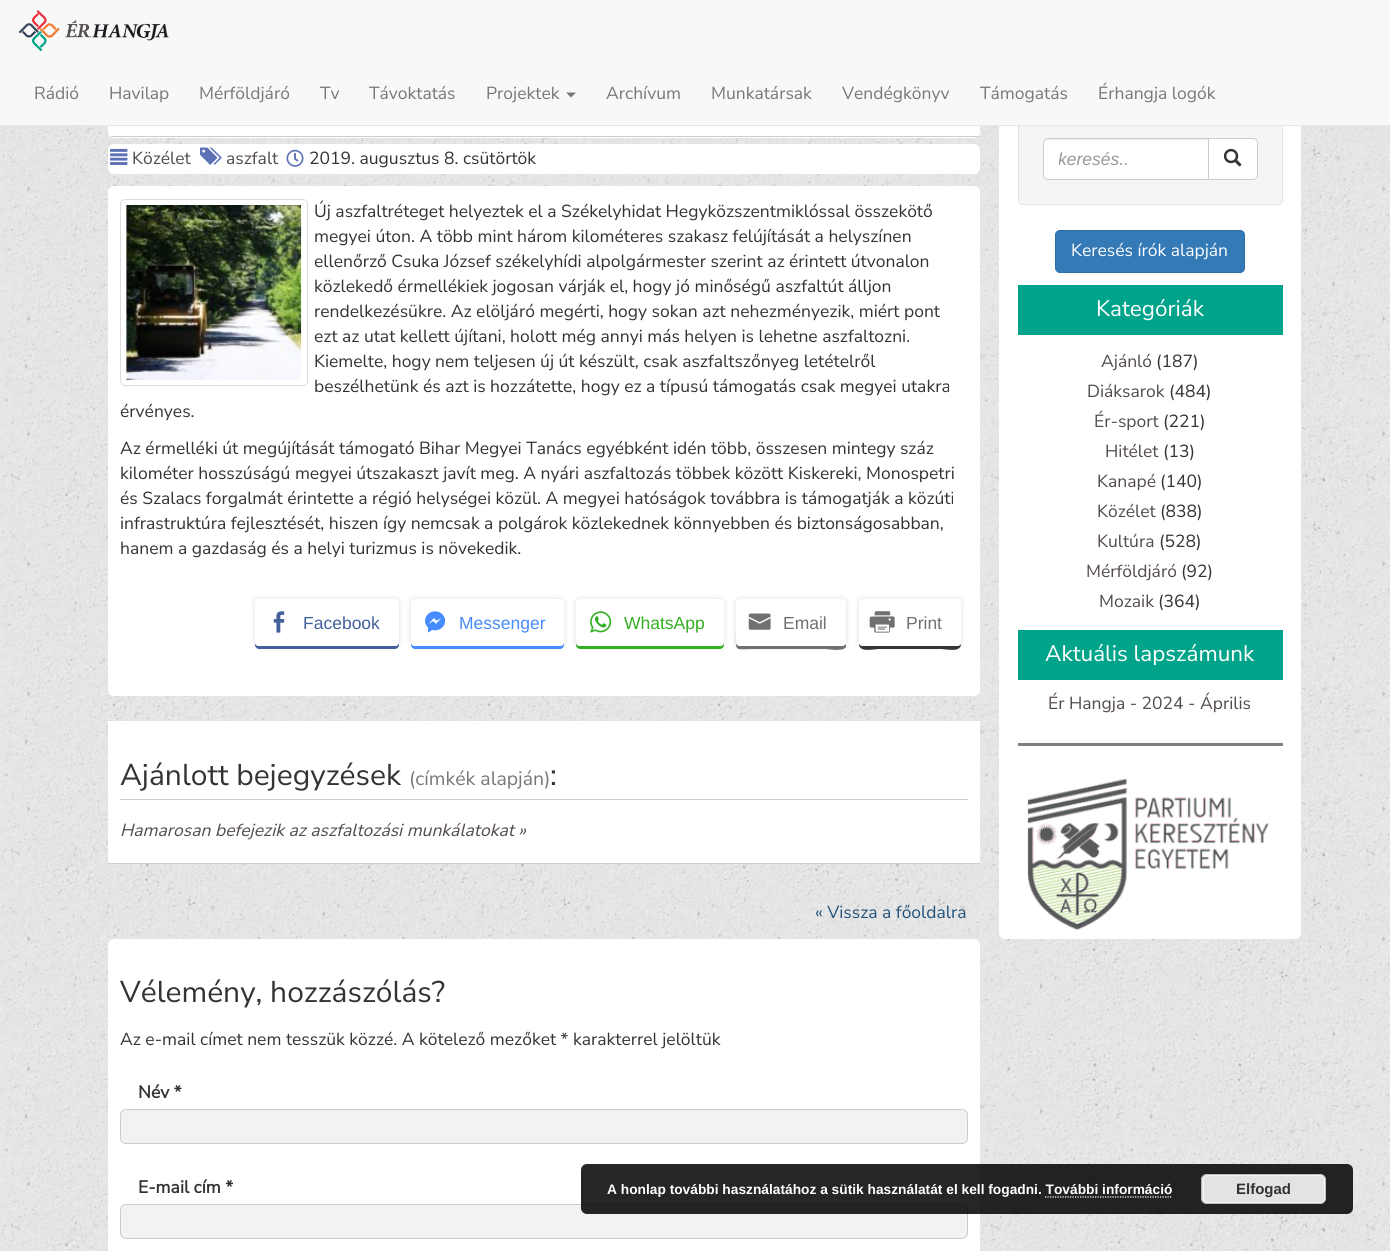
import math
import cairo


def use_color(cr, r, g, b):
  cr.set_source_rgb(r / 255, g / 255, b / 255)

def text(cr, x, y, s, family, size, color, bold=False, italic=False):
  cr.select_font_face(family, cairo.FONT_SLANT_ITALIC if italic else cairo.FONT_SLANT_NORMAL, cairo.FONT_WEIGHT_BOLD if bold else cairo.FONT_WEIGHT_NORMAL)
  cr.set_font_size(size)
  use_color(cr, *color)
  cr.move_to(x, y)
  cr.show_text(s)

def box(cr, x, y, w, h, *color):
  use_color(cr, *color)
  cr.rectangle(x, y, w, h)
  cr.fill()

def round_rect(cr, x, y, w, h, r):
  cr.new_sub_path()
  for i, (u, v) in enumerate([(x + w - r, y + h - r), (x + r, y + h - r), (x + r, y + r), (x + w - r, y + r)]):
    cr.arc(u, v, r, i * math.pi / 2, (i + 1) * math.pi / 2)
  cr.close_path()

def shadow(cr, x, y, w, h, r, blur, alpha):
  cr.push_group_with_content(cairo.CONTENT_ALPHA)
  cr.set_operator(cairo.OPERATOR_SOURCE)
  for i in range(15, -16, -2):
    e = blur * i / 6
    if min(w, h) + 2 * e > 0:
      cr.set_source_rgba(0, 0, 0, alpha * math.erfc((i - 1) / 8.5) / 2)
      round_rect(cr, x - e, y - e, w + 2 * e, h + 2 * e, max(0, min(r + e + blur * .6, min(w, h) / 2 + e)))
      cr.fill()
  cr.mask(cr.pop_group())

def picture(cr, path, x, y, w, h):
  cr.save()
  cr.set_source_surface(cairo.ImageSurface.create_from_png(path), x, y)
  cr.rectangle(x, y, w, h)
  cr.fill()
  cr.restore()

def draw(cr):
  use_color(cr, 255, 255, 255)
  cr.paint()
  picture(cr, "img_01.png", 0, 126, 1390, 1125)
  use_color(cr, 255, 255, 255)
  round_rect(cr, 108, 101, 872, 37, 6)
  cr.fill()
  round_rect(cr, 999, 88, 302, 851, 6)
  cr.fill()
  use_color(cr, 245, 245, 245)
  round_rect(cr, 1018.5, 113.5, 264, 91, 4.5)
  cr.fill_preserve()
  use_color(cr, 227, 227, 227)
  cr.set_line_width(1)
  cr.stroke()
  box(cr, 0, 0, 1390, 125, 248, 248, 248)
  box(cr, 0, 125, 1390, 1, 231, 231, 231)
  picture(cr, "img_02.png", 18, 10, 151, 42)
  use_color(cr, 119, 119, 119)
  cr.new_path()
  cr.move_to(566, 92.5)
  cr.line_to(576, 92.5)
  cr.line_to(571, 97.5)
  cr.close_path()
  cr.fill()
  box(cr, 111, 136, 867, 1, 204, 204, 204)
  use_color(cr, 255, 255, 255)
  round_rect(cr, 108, 144, 872, 30, 6)
  cr.fill()
  picture(cr, "img_03.png", 110, 148, 18, 17)
  picture(cr, "img_04.png", 200, 147, 22, 18)
  picture(cr, "img_05.png", 286, 149, 18, 18)
  round_rect(cr, 108, 186, 872, 510, 6)
  cr.fill()
  round_rect(cr, 120.5, 199.5, 187, 186, 4.5)
  use_color(cr, 221, 221, 221)
  cr.stroke()
  picture(cr, "img_06.png", 126, 205, 176, 175)
  use_color(cr, 0, 0, 0)
  shadow(cr, 255, 599, 144, 47, 4, 3, 0.13)
  use_color(cr, 67, 96, 156)
  cr.new_path()
  cr.move_to(255, 642)
  cr.line_to(255, 645)
  cr.curve_to(255, 647, 257, 649, 259, 649)
  cr.line_to(395, 649)
  cr.curve_to(397, 649, 399, 647, 399, 645)
  cr.line_to(399, 604)
  cr.line_to(399, 642)
  cr.curve_to(399, 645, 397, 646, 395, 646)
  cr.line_to(259, 646)
  cr.curve_to(257, 646, 255, 645, 255, 642)
  cr.close_path()
  cr.fill()
  use_color(cr, 255, 255, 255)
  round_rect(cr, 255, 599, 144, 47, 4)
  cr.fill()
  picture(cr, "img_07.png", 273, 611, 12, 22)
  use_color(cr, 0, 0, 0)
  shadow(cr, 411, 599, 153, 47, 4, 3, 0.13)
  use_color(cr, 70, 139, 255)
  cr.new_path()
  cr.move_to(411, 604)
  cr.line_to(411, 645)
  cr.curve_to(411, 647, 413, 649, 415, 649)
  cr.line_to(560, 649)
  cr.curve_to(562, 649, 564, 647, 564, 645)
  cr.line_to(564, 604)
  cr.line_to(564, 642)
  cr.curve_to(564, 645, 562, 646, 560, 646)
  cr.line_to(415, 646)
  cr.curve_to(413, 646, 411, 645, 411, 642)
  cr.close_path()
  cr.fill()
  use_color(cr, 255, 255, 255)
  round_rect(cr, 411, 599, 153, 47, 4)
  cr.fill()
  picture(cr, "img_08.png", 425, 611, 21, 22)
  use_color(cr, 0, 0, 0)
  shadow(cr, 576, 599, 148, 47, 4, 3, 0.13)
  use_color(cr, 52, 175, 35)
  cr.new_path()
  cr.move_to(576, 604)
  cr.line_to(576, 645)
  cr.curve_to(576, 647, 578, 649, 580, 649)
  cr.line_to(720, 649)
  cr.curve_to(722, 649, 724, 647, 724, 645)
  cr.line_to(724, 604)
  cr.line_to(724, 642)
  cr.curve_to(724, 645, 722, 646, 720, 646)
  cr.line_to(580, 646)
  cr.curve_to(578, 646, 576, 645, 576, 642)
  cr.close_path()
  cr.fill()
  use_color(cr, 255, 255, 255)
  round_rect(cr, 576, 599, 148, 47, 4)
  cr.fill()
  picture(cr, "img_09.png", 590, 611, 22, 22)
  use_color(cr, 0, 0, 0)
  shadow(cr, 736, 599, 110, 47, 4, 3, 0.13)
  use_color(cr, 113, 112, 112)
  cr.new_path()
  cr.move_to(736, 604)
  cr.line_to(736, 632)
  cr.curve_to(736, 653, 733, 649, 757, 649)
  cr.line_to(825, 649)
  cr.curve_to(828, 649, 843, 652, 846, 647)
  cr.line_to(846, 644)
  cr.curve_to(845, 645, 844, 646, 842, 646)
  cr.line_to(740, 646)
  cr.curve_to(738, 646, 736, 645, 736, 642)
  cr.close_path()
  cr.fill()
  use_color(cr, 255, 255, 255)
  round_rect(cr, 736, 599, 110, 47, 4)
  cr.fill()
  picture(cr, "img_10.png", 748, 613, 23, 17)
  use_color(cr, 0, 0, 0)
  shadow(cr, 859, 599, 102, 47, 4, 3, 0.13)
  use_color(cr, 53, 53, 53)
  cr.new_path()
  cr.move_to(859, 644)
  cr.curve_to(859, 653, 874, 649, 879, 649)
  cr.line_to(941, 649)
  cr.curve_to(946, 649, 961, 653, 961, 644)
  cr.curve_to(960, 645, 959, 646, 958, 646)
  cr.line_to(862, 646)
  cr.curve_to(861, 646, 860, 645, 859, 644)
  cr.close_path()
  cr.fill()
  use_color(cr, 255, 255, 255)
  round_rect(cr, 859, 599, 102, 47, 4)
  cr.fill()
  picture(cr, "img_11.png", 869, 611, 26, 22)
  box(cr, 108, 721, 872, 142, 255, 255, 255)
  box(cr, 108, 863, 872, 1, 204, 204, 204)
  box(cr, 120, 799, 848, 1, 204, 204, 204)
  use_color(cr, 255, 255, 255)
  round_rect(cr, 108, 939, 872, 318, 6)
  cr.fill()
  use_color(cr, 242, 242, 242)
  round_rect(cr, 120.5, 1109.5, 847, 34, 5.5)
  cr.fill_preserve()
  use_color(cr, 204, 204, 204)
  cr.stroke()
  use_color(cr, 242, 242, 242)
  round_rect(cr, 120.5, 1204.5, 847, 34, 5.5)
  cr.fill_preserve()
  use_color(cr, 204, 204, 204)
  cr.stroke()
  use_color(cr, 255, 255, 255)
  cr.new_path()
  cr.move_to(1048, 138)
  cr.line_to(1209, 138)
  cr.line_to(1209, 180)
  cr.line_to(1048, 180)
  cr.curve_to(1045, 180, 1043, 178, 1043, 175)
  cr.line_to(1043, 143)
  cr.curve_to(1043, 140, 1045, 138, 1048, 138)
  cr.close_path()
  cr.fill()
  use_color(cr, 236, 236, 236)
  cr.new_path()
  cr.move_to(1048, 140)
  cr.line_to(1208, 140)
  cr.line_to(1208, 139)
  cr.line_to(1048, 139)
  cr.curve_to(1045, 139, 1044, 141, 1044, 144)
  cr.curve_to(1044, 142, 1045, 140, 1048, 140)
  cr.close_path()
  cr.fill()
  cr.new_path()
  cr.move_to(1048, 138.5)
  cr.line_to(1208.5, 138.5)
  cr.line_to(1208.5, 179.5)
  cr.line_to(1048, 179.5)
  cr.curve_to(1045.5, 179.5, 1043.5, 177.5, 1043.5, 175)
  cr.line_to(1043.5, 143)
  cr.curve_to(1043.5, 140.5, 1045.5, 138.5, 1048, 138.5)
  cr.close_path()
  use_color(cr, 204, 204, 204)
  cr.stroke()
  use_color(cr, 255, 255, 255)
  cr.new_path()
  cr.move_to(1208.5, 138.5)
  cr.line_to(1253, 138.5)
  cr.curve_to(1255.5, 138.5, 1257.5, 140.5, 1257.5, 143)
  cr.line_to(1257.5, 175)
  cr.curve_to(1257.5, 177.5, 1255.5, 179.5, 1253, 179.5)
  cr.line_to(1208.5, 179.5)
  cr.close_path()
  cr.fill_preserve()
  use_color(cr, 204, 204, 204)
  cr.stroke()
  picture(cr, "img_12.png", 1223, 148, 19, 19)
  use_color(cr, 51, 122, 183)
  round_rect(cr, 1055.5, 230.5, 189, 42, 4.5)
  cr.fill_preserve()
  use_color(cr, 46, 109, 164)
  cr.stroke()
  box(cr, 1018, 285, 265, 50, 0, 164, 138)
  box(cr, 1018, 630, 265, 50, 0, 164, 138)
  box(cr, 1018, 743, 265, 3, 128, 128, 128)
  picture(cr, "img_13.png", 1027, 778, 242, 152)
  cr.set_source_rgba(0, 0, 0, 0.85)
  round_rect(cr, 581, 1164, 772, 50, 6)
  cr.fill()
  use_color(cr, 227, 227, 227)
  round_rect(cr, 1201, 1174, 125, 30, 6)
  cr.fill()
  round_rect(cr, 1203.5, 1175.5, 121, 27, 4.5)
  use_color(cr, 246, 246, 246)
  cr.stroke()
  round_rect(cr, 1201.5, 1174.5, 124, 29, 5.5)
  use_color(cr, 187, 187, 187)
  cr.stroke()
  cr.new_path()
  cr.move_to(1045, 1197)
  cr.line_to(1172.5, 1197)
  use_color(cr, 255, 255, 255)
  cr.set_line_width(1.2)
  cr.set_dash([1.25, 1.25])
  cr.stroke()
  text(cr, 34, 99, "Rádió", "Nunito Sans", 17.5, (119, 119, 119))
  text(cr, 109, 99, "Havilap", "Nunito Sans", 17.5, (119, 119, 119))
  text(cr, 199, 99, "Mérföldjáró", "Nunito Sans", 17.5, (119, 119, 119))
  text(cr, 320, 99, "Tv", "Nunito Sans", 17.5, (119, 119, 119))
  text(cr, 369, 99, "Távoktatás", "Nunito Sans", 17.5, (119, 119, 119))
  text(cr, 486, 99, "Projektek", "Nunito Sans", 17.5, (119, 119, 119))
  text(cr, 606, 99, "Archívum", "Nunito Sans", 17.5, (119, 119, 119))
  text(cr, 711, 99, "Munkatársak", "Nunito Sans", 17.5, (119, 119, 119))
  text(cr, 842, 99, "Vendégkönyv", "Nunito Sans", 17.5, (119, 119, 119))
  text(cr, 980, 99, "Támogatás", "Nunito Sans", 17.5, (119, 119, 119))
  text(cr, 1098, 99, "Érhangja logók", "Nunito Sans", 17.5, (119, 119, 119))
  text(cr, 132, 164, "Közélet", "Nunito Sans", 17.5, (83, 75, 75))
  text(cr, 226, 164, "aszfalt", "Nunito Sans", 17.5, (83, 75, 75))
  text(cr, 309, 164, "2019. augusztus 8. csütörtök", "Nunito Sans", 17.5, (51, 51, 51))
  text(cr, 314, 217, "Új aszfaltréteget helyeztek el a Székelyhidat Hegyközszentmiklóssal összekötő", "Nunito Sans", 17.5, (51, 51, 51))
  text(cr, 314, 242, "megyei úton. A több mint három kilométeres szakasz felújítását a helyszínen", "Nunito Sans", 17.5, (51, 51, 51))
  text(cr, 314, 267, "ellenőrző Csuka József székelyhídi alpolgármester szerint az érintett útvonalon", "Nunito Sans", 17.5, (51, 51, 51))
  text(cr, 314, 292, "közlekedő érmellékiek jogosan várják el, hogy jó minőségű aszfaltút álljon", "Nunito Sans", 17.5, (51, 51, 51))
  text(cr, 314, 317, "rendelkezésükre. Az elöljáró megérti, hogy sokan azt nehezményezik, miért pont", "Nunito Sans", 17.5, (51, 51, 51))
  text(cr, 314, 342, "ezt az utat kellett újítani, holott még annyi más helyen is lehetne aszfaltozni.", "Nunito Sans", 17.5, (51, 51, 51))
  text(cr, 314, 367, "Kiemelte, hogy nem teljesen új út készült, csak aszfaltszőnyeg letételről", "Nunito Sans", 17.5, (51, 51, 51))
  text(cr, 314, 392, "beszélhetünk és azt is hozzátette, hogy ez a típusú támogatás csak megyei utakra", "Nunito Sans", 17.5, (51, 51, 51))
  text(cr, 120, 417, "érvényes.", "Nunito Sans", 17.5, (51, 51, 51))
  text(cr, 120, 454, "Az érmelléki út megújítását támogató Bihar Megyei Tanács egyébként idén több, összesen mintegy száz", "Nunito Sans", 17.5, (51, 51, 51))
  text(cr, 120, 479, "kilométer hosszúságú megyei útszakaszt javít meg. A nyári aszfaltozás többek között Kiskereki, Monospetri", "Nunito Sans", 17.5, (51, 51, 51))
  text(cr, 120, 504, "és Szalacs forgalmát érintette a régió helységei közül. A megyei hatóságok továbbra is támogatják a közúti", "Nunito Sans", 17.5, (51, 51, 51))
  text(cr, 120, 529, "infrastruktúra fejlesztését, hiszen így nemcsak a polgárok közlekednek könnyebben és biztonságosabban,", "Nunito Sans", 17.5, (51, 51, 51))
  text(cr, 120, 554, "hanem a gazdaság és a helyi turizmus is növekedik.", "Nunito Sans", 17.5, (51, 51, 51))
  text(cr, 303, 629, "Facebook", "Liberation Sans", 17.5, (67, 96, 156))
  text(cr, 459, 629, "Messenger", "Liberation Sans", 17.5, (70, 139, 255))
  text(cr, 624, 629, "WhatsApp", "Liberation Sans", 17.5, (52, 175, 35))
  text(cr, 783, 629, "Email", "Liberation Sans", 17.5, (113, 112, 112))
  text(cr, 906, 629, "Print", "Liberation Sans", 17.5, (113, 112, 112))
  text(cr, 120, 785, "Ajánlott bejegyzések", "Nunito Sans", 30, (51, 51, 51))
  text(cr, 409, 785, "(címkék alapján)", "Nunito Sans", 19.5, (119, 119, 119))
  text(cr, 550, 785, ":", "Nunito Sans", 30, (51, 51, 51))
  text(cr, 120, 836, "Hamarosan befejezik az aszfaltozási munkálatokat »", "Nunito Sans", 17.5, (83, 75, 75), italic=True)
  text(cr, 815, 918, "« Vissza a főoldalra", "Nunito Sans", 17.5, (35, 82, 124))
  text(cr, 120, 1002, "Vélemény, hozzászólás?", "Nunito Sans", 30, (51, 51, 51))
  text(cr, 120, 1045, "Az e-mail címet nem tesszük közzé. A kötelező mezőket * karakterrel jelöltük", "Nunito Sans", 17.5, (51, 51, 51))
  text(cr, 138, 1098, "Név *", "Nunito Sans", 17.5, (51, 51, 51), bold=True)
  text(cr, 138, 1193, "E-mail cím *", "Nunito Sans", 17.5, (51, 51, 51), bold=True)
  cr.save()
  cr.rectangle(1059, 149, 134, 20)
  cr.clip()
  text(cr, 1058, 165, "keresés..", "Liberation Sans", 17.5, (153, 153, 153), italic=True)
  cr.restore()
  text(cr, 1071, 256, "Keresés írók alapján", "Nunito Sans", 17.5, (255, 255, 255))
  text(cr, 1096, 316, "Kategóriák", "Nunito Sans", 22.5, (255, 255, 255))
  text(cr, 1101, 367, "Ajánló", "Nunito Sans", 17.5, (83, 75, 75))
  text(cr, 1156, 367, "(187)", "Nunito Sans", 17.5, (51, 51, 51))
  text(cr, 1087, 397, "Diáksarok", "Nunito Sans", 17.5, (83, 75, 75))
  text(cr, 1169, 397, "(484)", "Nunito Sans", 17.5, (51, 51, 51))
  text(cr, 1094, 427, "Ér-sport", "Nunito Sans", 17.5, (83, 75, 75))
  text(cr, 1163, 427, "(221)", "Nunito Sans", 17.5, (51, 51, 51))
  text(cr, 1105, 457, "Hitélet", "Nunito Sans", 17.5, (83, 75, 75))
  text(cr, 1163, 457, "(13)", "Nunito Sans", 17.5, (51, 51, 51))
  text(cr, 1097, 487, "Kanapé", "Nunito Sans", 17.5, (83, 75, 75))
  text(cr, 1160, 487, "(140)", "Nunito Sans", 17.5, (51, 51, 51))
  text(cr, 1097, 517, "Közélet", "Nunito Sans", 17.5, (83, 75, 75))
  text(cr, 1160, 517, "(838)", "Nunito Sans", 17.5, (51, 51, 51))
  text(cr, 1097, 547, "Kultúra", "Nunito Sans", 17.5, (83, 75, 75))
  text(cr, 1159, 547, "(528)", "Nunito Sans", 17.5, (51, 51, 51))
  text(cr, 1086, 577, "Mérföldjáró", "Nunito Sans", 17.5, (83, 75, 75))
  text(cr, 1181, 577, "(92)", "Nunito Sans", 17.5, (51, 51, 51))
  text(cr, 1099, 607, "Mozaik", "Nunito Sans", 17.5, (83, 75, 75))
  text(cr, 1158, 607, "(364)", "Nunito Sans", 17.5, (51, 51, 51))
  text(cr, 1045, 661, "Aktuális lapszámunk", "Nunito Sans", 22.5, (255, 255, 255))
  text(cr, 1048, 709, "Ér Hangja - 2024 - Április", "Nunito Sans", 17.5, (83, 75, 75))
  text(cr, 607, 1194, "A honlap további használatához a sütik használatát el kell fogadni. További információ", "Liberation Sans", 13.75, (255, 255, 255), bold=True)
  text(cr, 1236, 1194, "Elfogad", "Liberation Sans", 15, (51, 51, 51), bold=True)


surface = cairo.ImageSurface(cairo.FORMAT_RGB24, 1390, 1251)
cr = cairo.Context(surface)
options = cairo.FontOptions()
options.set_hint_metrics(cairo.HINT_METRICS_OFF)
options.set_hint_style(cairo.HINT_STYLE_NONE)
cr.set_font_options(options)
cr.set_miter_limit(4)
draw(cr)
surface.write_to_png("out.png")
